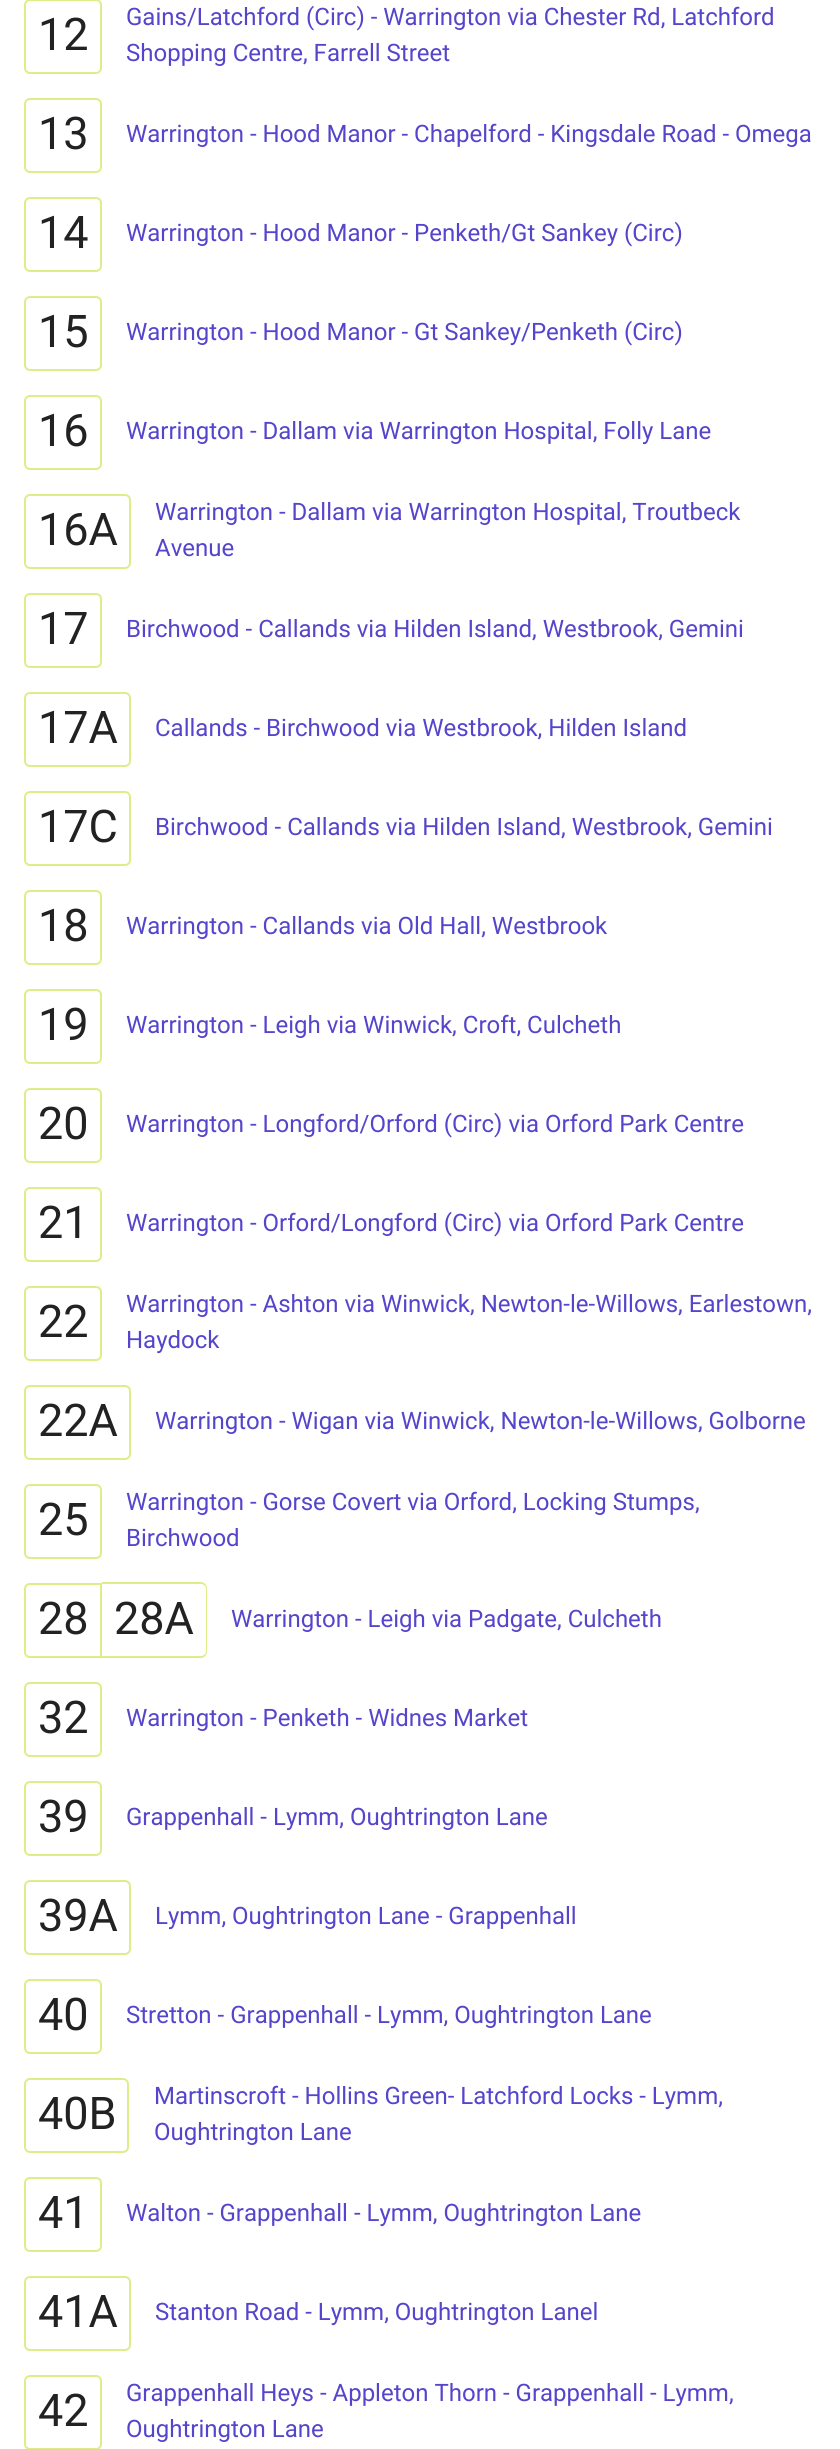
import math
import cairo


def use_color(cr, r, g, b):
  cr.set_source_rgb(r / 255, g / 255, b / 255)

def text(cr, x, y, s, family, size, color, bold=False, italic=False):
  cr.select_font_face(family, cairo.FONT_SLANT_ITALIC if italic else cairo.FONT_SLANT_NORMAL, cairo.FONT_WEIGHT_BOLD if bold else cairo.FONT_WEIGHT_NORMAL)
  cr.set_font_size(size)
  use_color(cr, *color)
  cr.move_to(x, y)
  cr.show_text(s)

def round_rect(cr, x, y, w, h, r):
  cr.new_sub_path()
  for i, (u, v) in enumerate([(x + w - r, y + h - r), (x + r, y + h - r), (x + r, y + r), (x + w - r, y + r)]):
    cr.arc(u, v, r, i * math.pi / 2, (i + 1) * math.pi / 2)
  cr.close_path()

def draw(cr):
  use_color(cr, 255, 255, 255)
  cr.paint()
  round_rect(cr, 25, 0, 76, 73, 5)
  use_color(cr, 221, 238, 136)
  cr.stroke()
  round_rect(cr, 25, 99, 76, 73, 5)
  cr.stroke()
  round_rect(cr, 25, 198, 76, 73, 5)
  cr.stroke()
  round_rect(cr, 25, 297, 76, 73, 5)
  cr.stroke()
  round_rect(cr, 25, 396, 76, 73, 5)
  cr.stroke()
  round_rect(cr, 25, 495, 105, 73, 5)
  cr.stroke()
  round_rect(cr, 25, 594, 76, 73, 5)
  cr.stroke()
  round_rect(cr, 25, 693, 105, 73, 5)
  cr.stroke()
  round_rect(cr, 25, 792, 105, 73, 5)
  cr.stroke()
  round_rect(cr, 25, 891, 76, 73, 5)
  cr.stroke()
  round_rect(cr, 25, 990, 76, 73, 5)
  cr.stroke()
  round_rect(cr, 25, 1089, 76, 73, 5)
  cr.stroke()
  round_rect(cr, 25, 1188, 76, 73, 5)
  cr.stroke()
  round_rect(cr, 25, 1287, 76, 73, 5)
  cr.stroke()
  round_rect(cr, 25, 1386, 105, 73, 5)
  cr.stroke()
  round_rect(cr, 25, 1485, 76, 73, 5)
  cr.stroke()
  cr.new_path()
  cr.move_to(30, 1584)
  cr.line_to(101, 1584)
  cr.line_to(101, 1657)
  cr.line_to(30, 1657)
  cr.curve_to(27, 1657, 25, 1655, 25, 1652)
  cr.line_to(25, 1589)
  cr.curve_to(25, 1586, 27, 1584, 30, 1584)
  cr.close_path()
  cr.stroke()
  cr.set_fill_rule(cairo.FILL_RULE_EVEN_ODD)
  cr.new_path()
  cr.move_to(102, 1582)
  cr.line_to(201, 1582)
  cr.curve_to(204, 1582, 207, 1585, 207, 1588)
  cr.line_to(207, 1652)
  cr.curve_to(207, 1655, 204, 1658, 201, 1658)
  cr.line_to(102, 1658)
  cr.close_path()
  cr.move_to(102, 1584)
  cr.line_to(201, 1584)
  cr.curve_to(203, 1584, 206, 1586, 206, 1588)
  cr.line_to(206, 1652)
  cr.curve_to(206, 1654, 203, 1656, 201, 1656)
  cr.line_to(102, 1656)
  cr.close_path()
  cr.fill()
  round_rect(cr, 25, 1683, 76, 73, 5)
  cr.stroke()
  round_rect(cr, 25, 1782, 76, 73, 5)
  cr.stroke()
  round_rect(cr, 25, 1881, 105, 73, 5)
  cr.stroke()
  round_rect(cr, 25, 1980, 76, 73, 5)
  cr.stroke()
  round_rect(cr, 25, 2079, 103, 73, 5)
  cr.stroke()
  round_rect(cr, 25, 2178, 76, 73, 5)
  cr.stroke()
  round_rect(cr, 25, 2277, 105, 73, 5)
  cr.stroke()
  round_rect(cr, 25, 2376, 76, 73, 5)
  cr.stroke()
  text(cr, 38, 50, "12", "Roboto", 45, (34, 34, 34))
  text(cr, 126, 25, "Gains/Latchford (Circ) - Warrington via Chester Rd, Latchford", "Roboto", 24, (85, 68, 204))
  text(cr, 126, 61, "Shopping Centre, Farrell Street", "Roboto", 24, (85, 68, 204))
  text(cr, 38, 149, "13", "Roboto", 45, (34, 34, 34))
  text(cr, 126, 142, "Warrington - Hood Manor - Chapelford - Kingsdale Road - Omega", "Roboto", 24, (85, 68, 204))
  text(cr, 38, 248, "14", "Roboto", 45, (34, 34, 34))
  text(cr, 126, 241, "Warrington - Hood Manor - Penketh/Gt Sankey (Circ)", "Roboto", 24, (85, 68, 204))
  text(cr, 38, 347, "15", "Roboto", 45, (34, 34, 34))
  text(cr, 126, 340, "Warrington - Hood Manor - Gt Sankey/Penketh (Circ)", "Roboto", 24, (85, 68, 204))
  text(cr, 38, 446, "16", "Roboto", 45, (34, 34, 34))
  text(cr, 126, 439, "Warrington - Dallam via Warrington Hospital, Folly Lane", "Roboto", 24, (85, 68, 204))
  text(cr, 38, 545, "16A", "Roboto", 45, (34, 34, 34))
  text(cr, 155, 520, "Warrington - Dallam via Warrington Hospital, Troutbeck", "Roboto", 24, (85, 68, 204))
  text(cr, 155, 556, "Avenue", "Roboto", 24, (85, 68, 204))
  text(cr, 38, 644, "17", "Roboto", 45, (34, 34, 34))
  text(cr, 126, 637, "Birchwood - Callands via Hilden Island, Westbrook, Gemini", "Roboto", 24, (85, 68, 204))
  text(cr, 38, 743, "17A", "Roboto", 45, (34, 34, 34))
  text(cr, 155, 736, "Callands - Birchwood via Westbrook, Hilden Island", "Roboto", 24, (85, 68, 204))
  text(cr, 38, 842, "17C", "Roboto", 45, (34, 34, 34))
  text(cr, 155, 835, "Birchwood - Callands via Hilden Island, Westbrook, Gemini", "Roboto", 24, (85, 68, 204))
  text(cr, 38, 941, "18", "Roboto", 45, (34, 34, 34))
  text(cr, 126, 934, "Warrington - Callands via Old Hall, Westbrook", "Roboto", 24, (85, 68, 204))
  text(cr, 38, 1040, "19", "Roboto", 45, (34, 34, 34))
  text(cr, 126, 1033, "Warrington - Leigh via Winwick, Croft, Culcheth", "Roboto", 24, (85, 68, 204))
  text(cr, 38, 1139, "20", "Roboto", 45, (34, 34, 34))
  text(cr, 126, 1132, "Warrington - Longford/Orford (Circ) via Orford Park Centre", "Roboto", 24, (85, 68, 204))
  text(cr, 38, 1238, "21", "Roboto", 45, (34, 34, 34))
  text(cr, 126, 1231, "Warrington - Orford/Longford (Circ) via Orford Park Centre", "Roboto", 24, (85, 68, 204))
  text(cr, 38, 1337, "22", "Roboto", 45, (34, 34, 34))
  text(cr, 126, 1312, "Warrington - Ashton via Winwick, Newton-le-Willows, Earlestown,", "Roboto", 24, (85, 68, 204))
  text(cr, 126, 1348, "Haydock", "Roboto", 24, (85, 68, 204))
  text(cr, 38, 1436, "22A", "Roboto", 45, (34, 34, 34))
  text(cr, 155, 1429, "Warrington - Wigan via Winwick, Newton-le-Willows, Golborne", "Roboto", 24, (85, 68, 204))
  text(cr, 38, 1535, "25", "Roboto", 45, (34, 34, 34))
  text(cr, 126, 1510, "Warrington - Gorse Covert via Orford, Locking Stumps,", "Roboto", 24, (85, 68, 204))
  text(cr, 126, 1546, "Birchwood", "Roboto", 24, (85, 68, 204))
  text(cr, 38, 1634, "28", "Roboto", 45, (34, 34, 34))
  text(cr, 114, 1634, "28A", "Roboto", 45, (34, 34, 34))
  text(cr, 231, 1627, "Warrington - Leigh via Padgate, Culcheth", "Roboto", 24, (85, 68, 204))
  text(cr, 38, 1733, "32", "Roboto", 45, (34, 34, 34))
  text(cr, 126, 1726, "Warrington - Penketh - Widnes Market", "Roboto", 24, (85, 68, 204))
  text(cr, 38, 1832, "39", "Roboto", 45, (34, 34, 34))
  text(cr, 126, 1825, "Grappenhall - Lymm, Oughtrington Lane", "Roboto", 24, (85, 68, 204))
  text(cr, 38, 1931, "39A", "Roboto", 45, (34, 34, 34))
  text(cr, 155, 1924, "Lymm, Oughtrington Lane - Grappenhall", "Roboto", 24, (85, 68, 204))
  text(cr, 38, 2030, "40", "Roboto", 45, (34, 34, 34))
  text(cr, 126, 2023, "Stretton - Grappenhall - Lymm, Oughtrington Lane", "Roboto", 24, (85, 68, 204))
  text(cr, 38, 2129, "40B", "Roboto", 45, (34, 34, 34))
  text(cr, 154, 2104, "Martinscroft - Hollins Green- Latchford Locks - Lymm,", "Roboto", 24, (85, 68, 204))
  text(cr, 154, 2140, "Oughtrington Lane", "Roboto", 24, (85, 68, 204))
  text(cr, 38, 2228, "41", "Roboto", 45, (34, 34, 34))
  text(cr, 126, 2221, "Walton - Grappenhall - Lymm, Oughtrington Lane", "Roboto", 24, (85, 68, 204))
  text(cr, 38, 2327, "41A", "Roboto", 45, (34, 34, 34))
  text(cr, 155, 2320, "Stanton Road - Lymm, Oughtrington Lanel", "Roboto", 24, (85, 68, 204))
  text(cr, 38, 2426, "42", "Roboto", 45, (34, 34, 34))
  text(cr, 126, 2401, "Grappenhall Heys - Appleton Thorn - Grappenhall - Lymm,", "Roboto", 24, (85, 68, 204))
  text(cr, 126, 2437, "Oughtrington Lane", "Roboto", 24, (85, 68, 204))


surface = cairo.ImageSurface(cairo.FORMAT_RGB24, 840, 2449)
cr = cairo.Context(surface)
options = cairo.FontOptions()
options.set_hint_metrics(cairo.HINT_METRICS_OFF)
options.set_hint_style(cairo.HINT_STYLE_NONE)
cr.set_font_options(options)
cr.set_miter_limit(4)
draw(cr)
surface.write_to_png("out.png")
